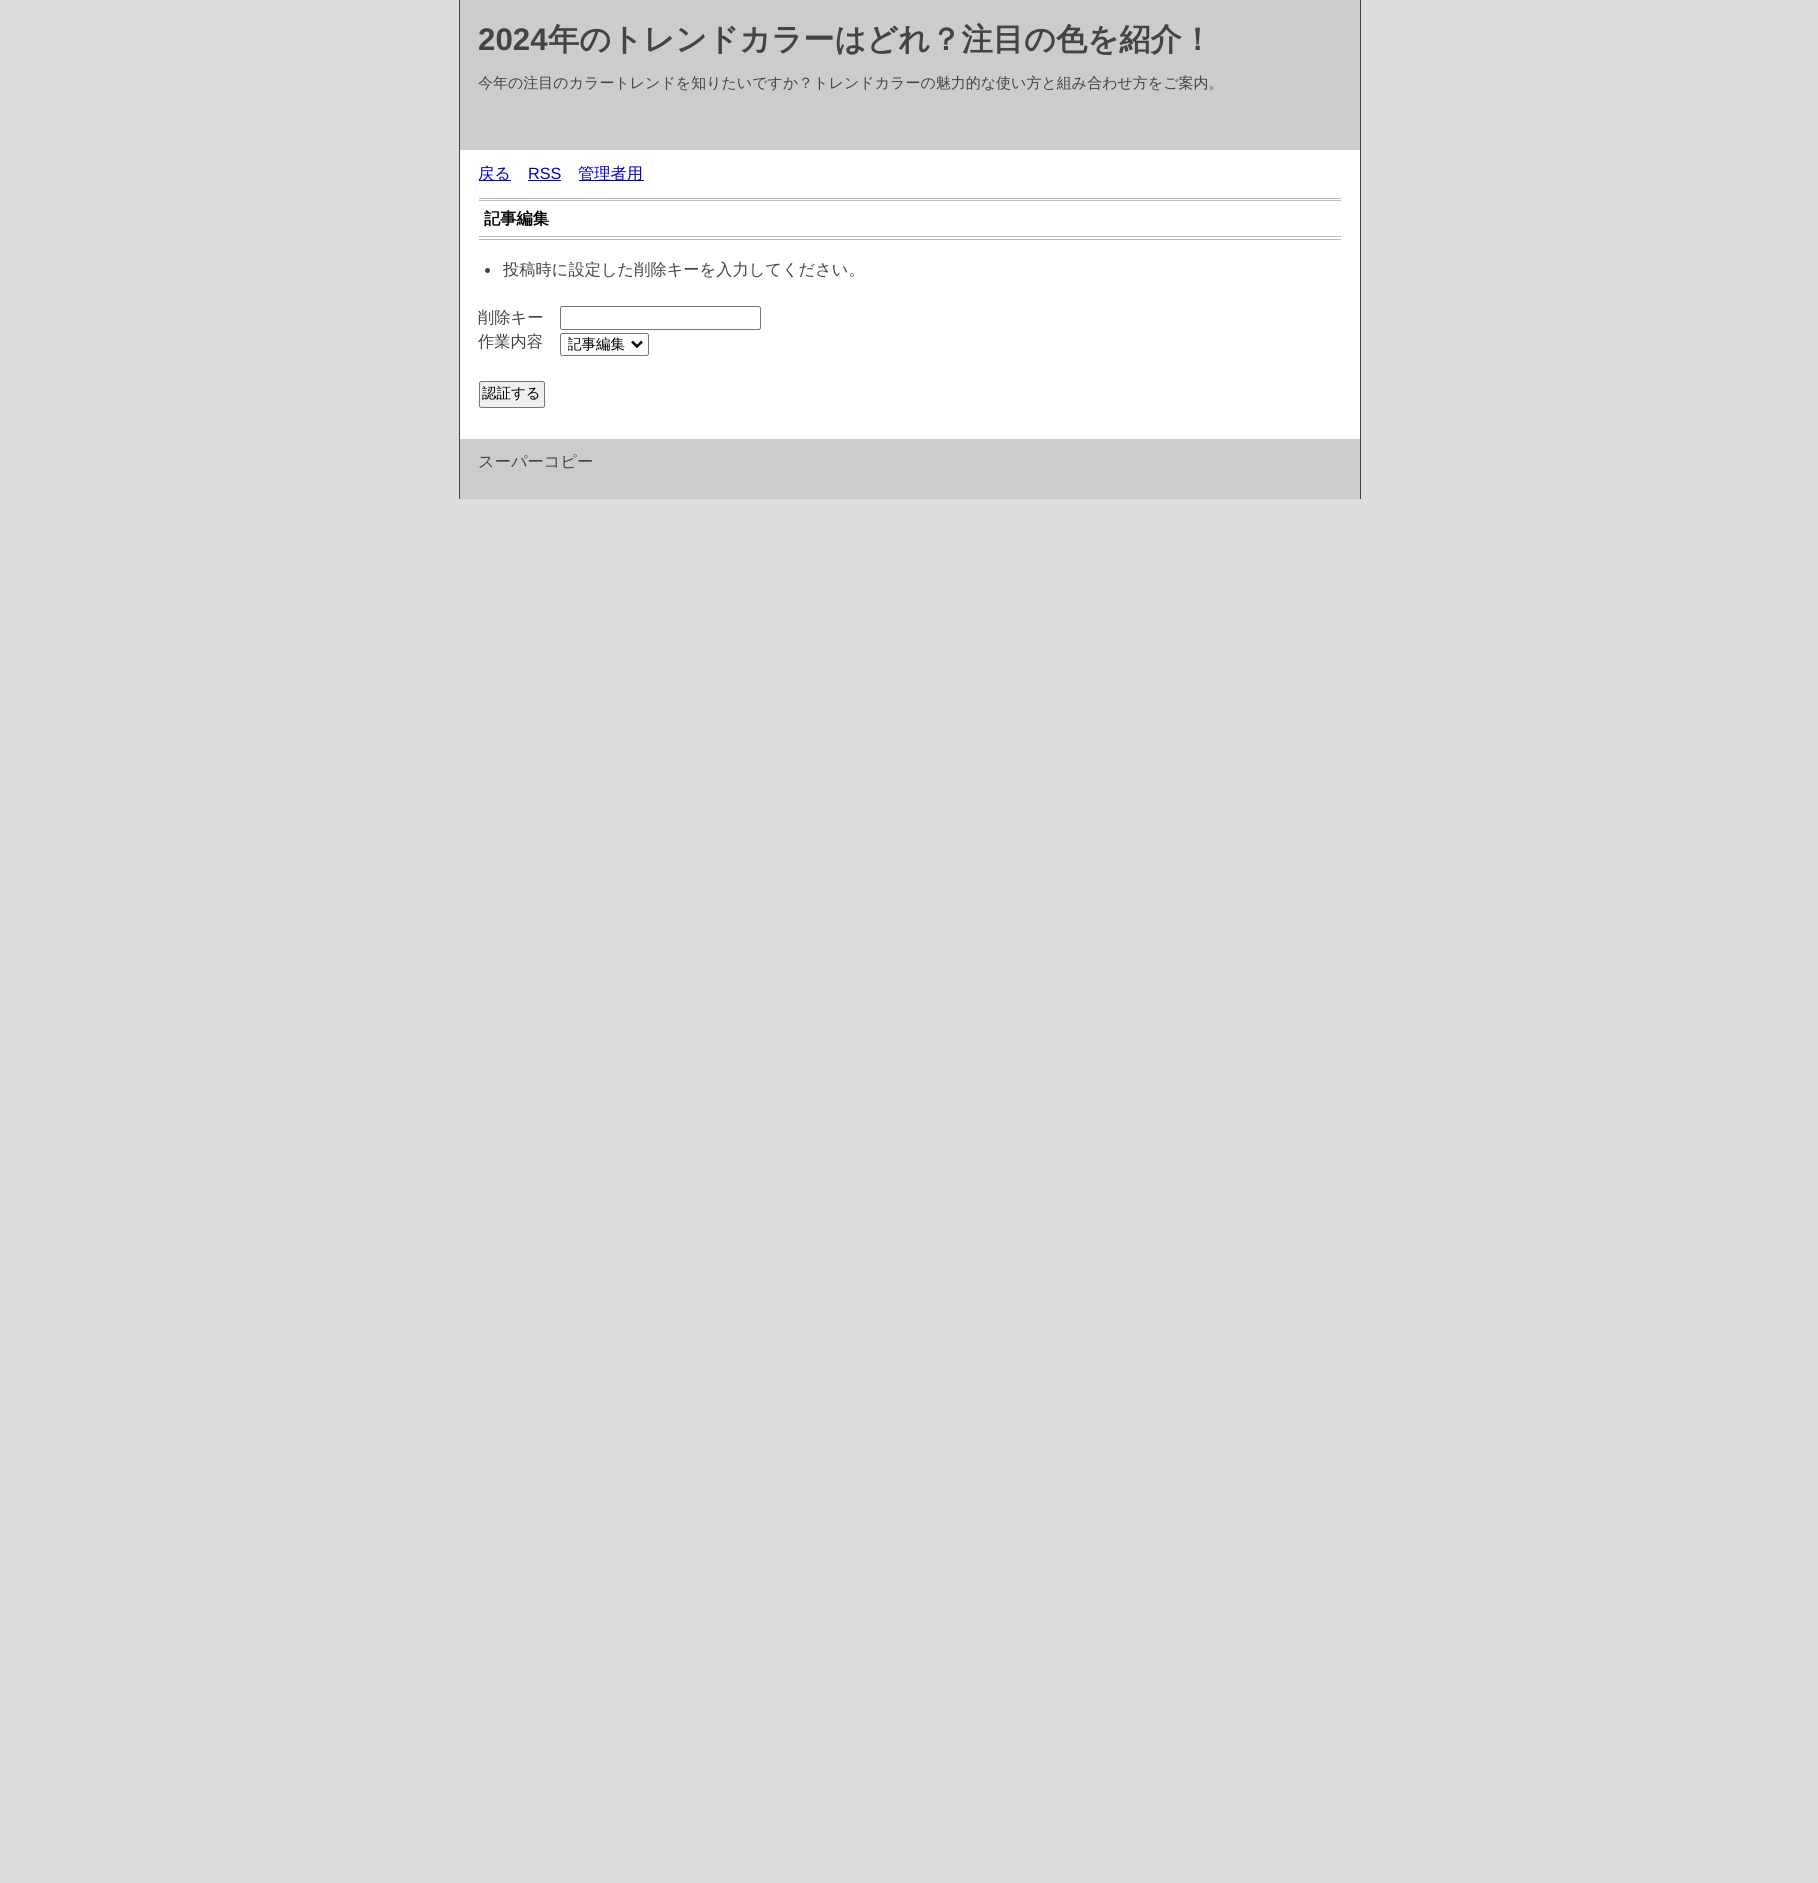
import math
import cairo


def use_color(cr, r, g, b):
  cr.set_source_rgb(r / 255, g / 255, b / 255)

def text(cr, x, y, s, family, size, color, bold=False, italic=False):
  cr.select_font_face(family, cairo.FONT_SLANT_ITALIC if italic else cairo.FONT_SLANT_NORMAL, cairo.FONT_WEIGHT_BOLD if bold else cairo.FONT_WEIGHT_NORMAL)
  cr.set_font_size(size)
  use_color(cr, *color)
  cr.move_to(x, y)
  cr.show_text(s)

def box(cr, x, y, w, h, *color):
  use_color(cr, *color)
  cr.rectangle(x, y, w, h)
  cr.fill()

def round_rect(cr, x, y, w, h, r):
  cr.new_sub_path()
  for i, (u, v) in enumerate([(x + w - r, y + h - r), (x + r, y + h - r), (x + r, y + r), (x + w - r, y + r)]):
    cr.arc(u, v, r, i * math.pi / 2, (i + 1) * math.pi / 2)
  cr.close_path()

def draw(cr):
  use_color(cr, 221, 221, 221)
  cr.paint()
  box(cr, 460, 150, 900, 289, 255, 255, 255)
  box(cr, 1360, 0, 1, 499, 68, 68, 68)
  box(cr, 459, 0, 1, 499, 68, 68, 68)
  box(cr, 460, 0, 900, 150, 204, 204, 204)
  box(cr, 479, 180, 32, 1, 0, 0, 204)
  box(cr, 528, 180, 33, 1, 0, 0, 204)
  box(cr, 579, 180, 65, 1, 0, 0, 204)
  box(cr, 479, 198, 862, 1, 187, 187, 187)
  box(cr, 479, 200, 862, 1, 187, 187, 187)
  box(cr, 479, 236, 862, 1, 187, 187, 187)
  box(cr, 479, 239, 862, 1, 187, 187, 187)
  use_color(cr, 68, 68, 68)
  cr.arc(487.5, 270.5, 2.5, 0, 2 * math.pi)
  cr.fill()
  round_rect(cr, 560.5, 306.5, 200, 23, 2)
  use_color(cr, 118, 118, 118)
  cr.set_line_width(1)
  cr.stroke()
  round_rect(cr, 560.5, 333.5, 88, 22, 2)
  cr.stroke()
  cr.new_path()
  cr.move_to(632, 341.5)
  cr.line_to(637, 346.5)
  cr.line_to(642, 341.5)
  use_color(cr, 0, 0, 0)
  cr.set_line_width(2.5)
  cr.stroke()
  use_color(cr, 239, 239, 239)
  round_rect(cr, 479.5, 381.5, 65, 26, 2)
  cr.fill_preserve()
  use_color(cr, 118, 118, 118)
  cr.set_line_width(1)
  cr.stroke()
  box(cr, 460, 439, 900, 60, 204, 204, 204)
  text(cr, 478, 50, "2024", "Liberation Sans", 31.25, (68, 68, 68), bold=True)
  text(cr, 548, 50, "年のトレンドカラーはどれ？注目の色を紹介！", "WenQuanYi Zen Hei", 31.25, (68, 68, 68), bold=True)
  text(cr, 478, 88, "今年の注目のカラートレンドを知りたいですか？トレンドカラーの魅力的な使い方と組み合わせ方をご案内。", "WenQuanYi Zen Hei Medium", 15, (68, 68, 68))
  text(cr, 478, 179, "戻る", "WenQuanYi Zen Hei Medium", 16.25, (0, 0, 204))
  text(cr, 528, 179, "RSS", "Liberation Sans", 16.25, (0, 0, 204))
  text(cr, 578, 179, "管理者用", "WenQuanYi Zen Hei Medium", 16.25, (0, 0, 204))
  text(cr, 484, 224, "記事編集", "WenQuanYi Zen Hei", 16.25, (0, 0, 0), bold=True)
  text(cr, 503, 275, "投稿時に設定した削除キーを入力してください。", "WenQuanYi Zen Hei Medium", 16.25, (68, 68, 68))
  text(cr, 478, 323, "削除キー", "WenQuanYi Zen Hei Medium", 16.25, (68, 68, 68))
  text(cr, 478, 347, "作業内容", "WenQuanYi Zen Hei Medium", 16.25, (68, 68, 68))
  cr.save()
  cr.rectangle(568, 335, 58, 19)
  cr.clip()
  text(cr, 567, 349, "記事編集", "WenQuanYi Zen Hei Medium", 14.5, (0, 0, 0))
  cr.restore()
  text(cr, 482, 398, "認証する", "WenQuanYi Zen Hei Medium", 14.5, (0, 0, 0))
  text(cr, 478, 467, "スーパーコピー", "WenQuanYi Zen Hei Medium", 16.25, (68, 68, 68))


surface = cairo.ImageSurface(cairo.FORMAT_RGB24, 1818, 1883)
cr = cairo.Context(surface)
options = cairo.FontOptions()
options.set_hint_metrics(cairo.HINT_METRICS_OFF)
options.set_hint_style(cairo.HINT_STYLE_NONE)
cr.set_font_options(options)
cr.set_miter_limit(4)
draw(cr)
surface.write_to_png("out.png")
